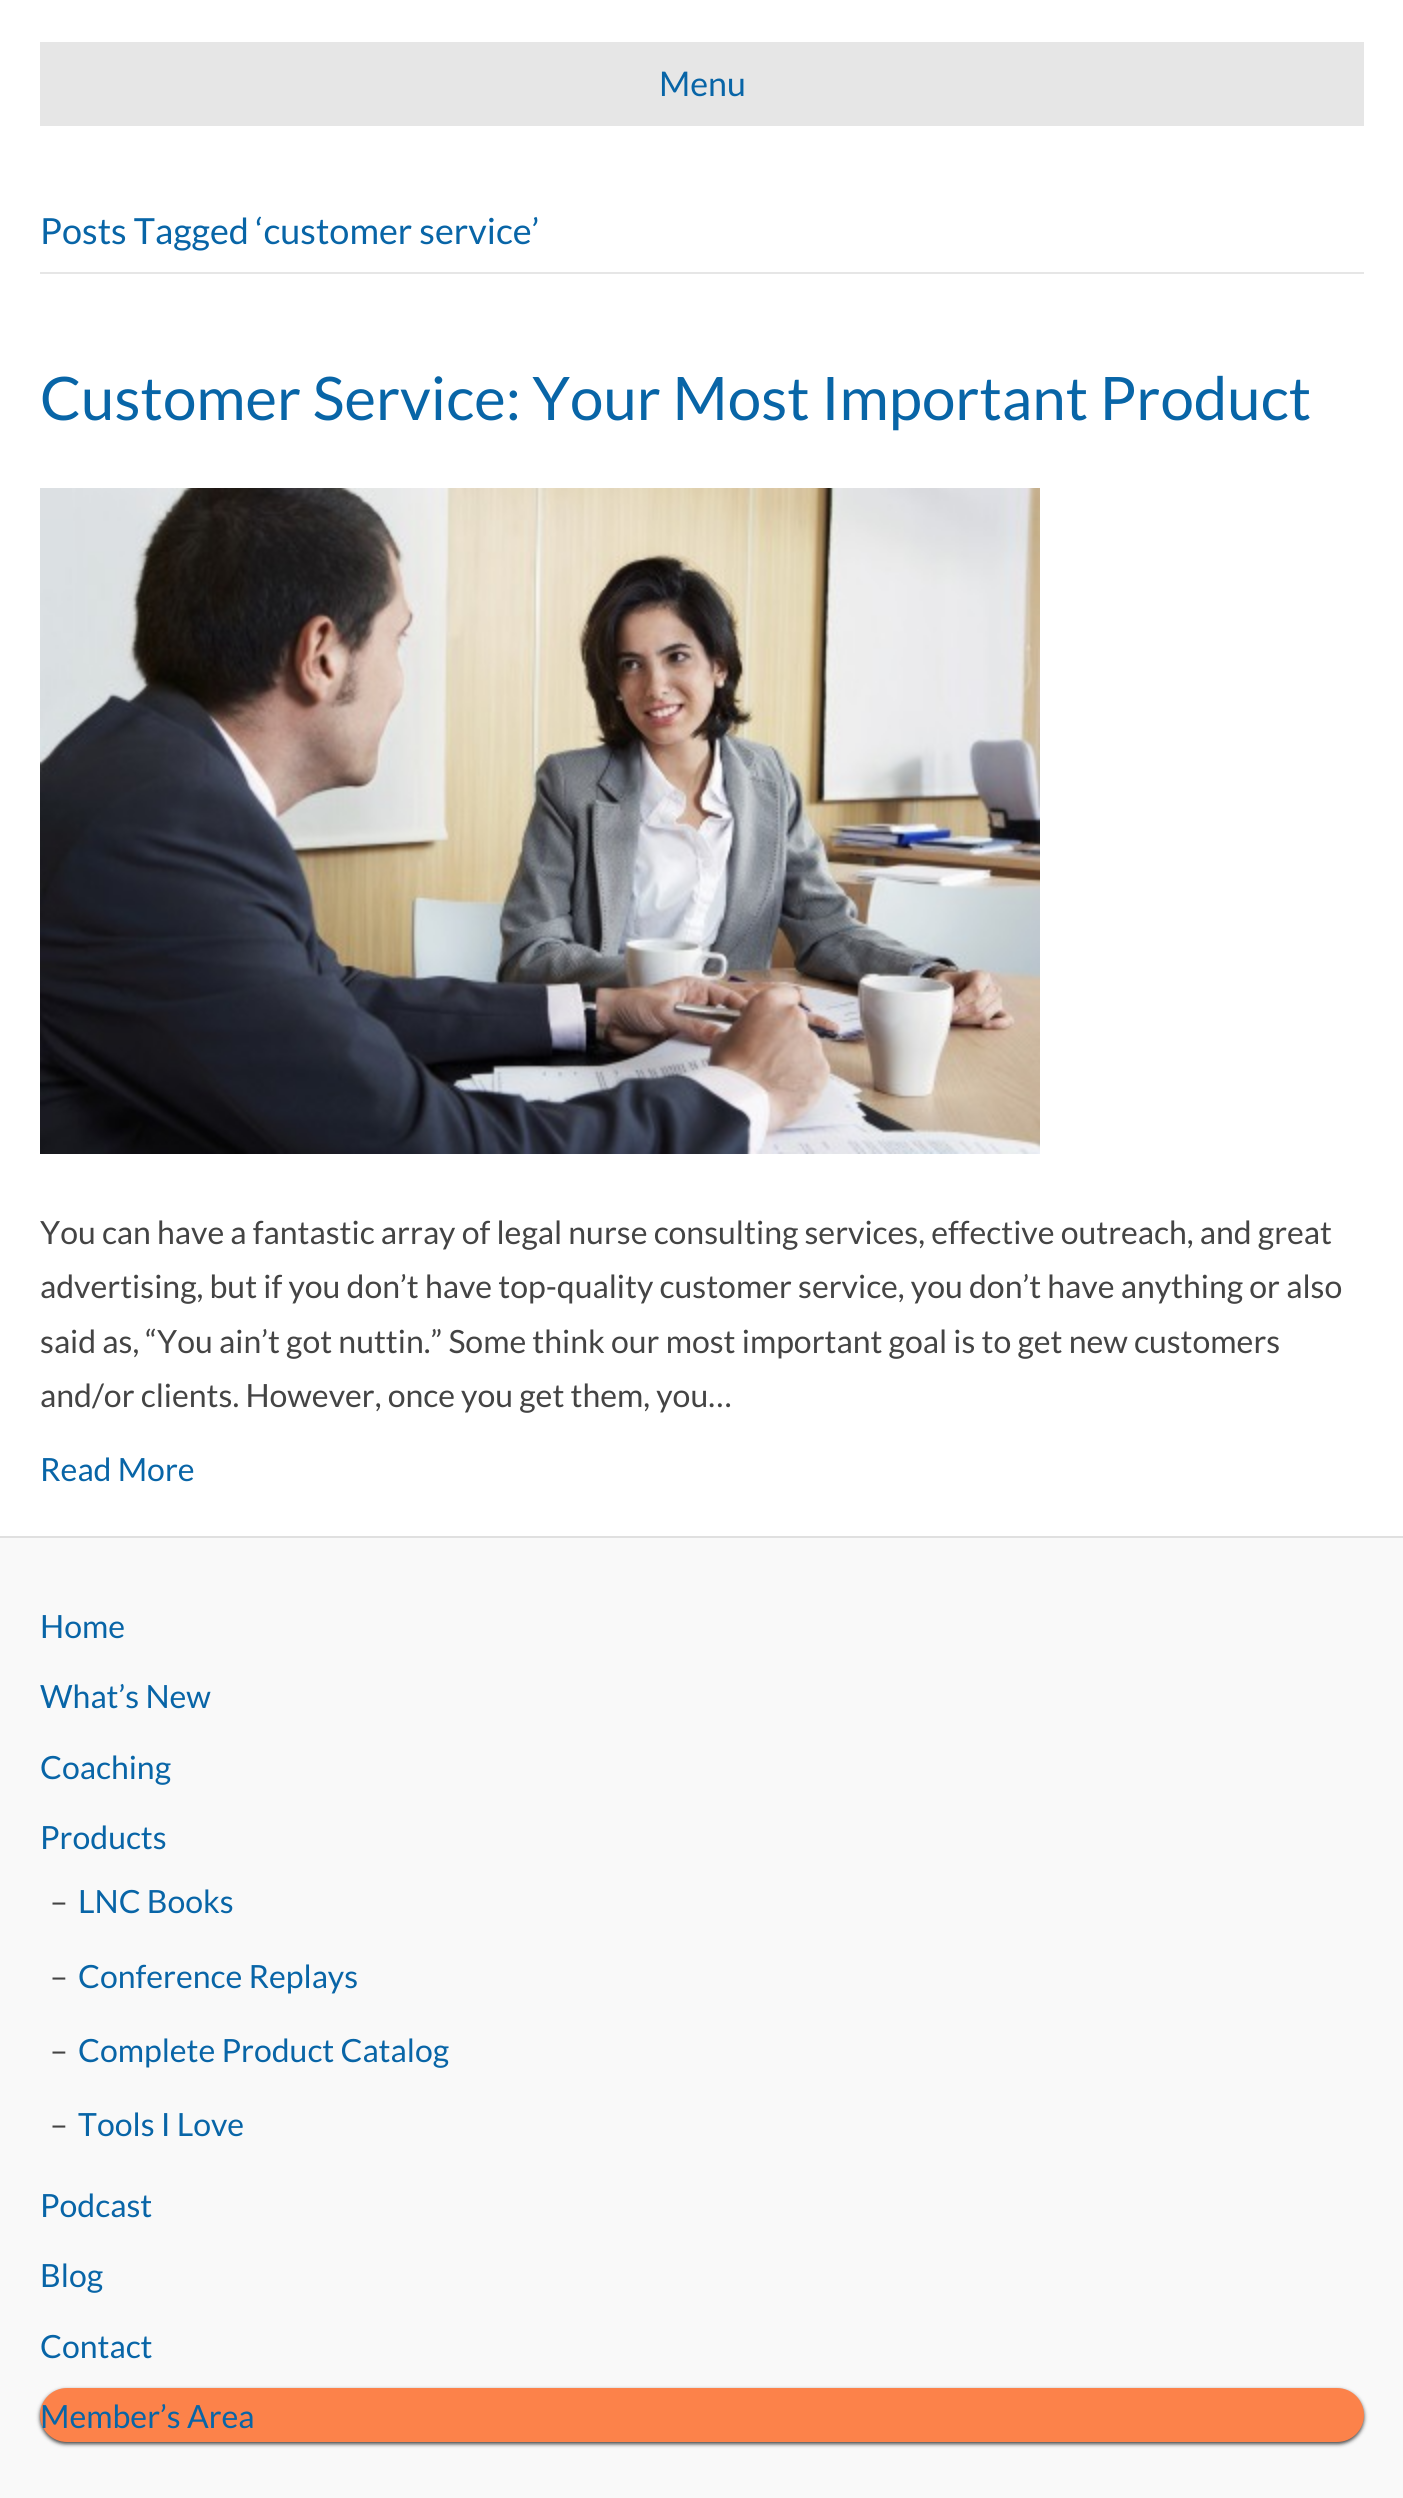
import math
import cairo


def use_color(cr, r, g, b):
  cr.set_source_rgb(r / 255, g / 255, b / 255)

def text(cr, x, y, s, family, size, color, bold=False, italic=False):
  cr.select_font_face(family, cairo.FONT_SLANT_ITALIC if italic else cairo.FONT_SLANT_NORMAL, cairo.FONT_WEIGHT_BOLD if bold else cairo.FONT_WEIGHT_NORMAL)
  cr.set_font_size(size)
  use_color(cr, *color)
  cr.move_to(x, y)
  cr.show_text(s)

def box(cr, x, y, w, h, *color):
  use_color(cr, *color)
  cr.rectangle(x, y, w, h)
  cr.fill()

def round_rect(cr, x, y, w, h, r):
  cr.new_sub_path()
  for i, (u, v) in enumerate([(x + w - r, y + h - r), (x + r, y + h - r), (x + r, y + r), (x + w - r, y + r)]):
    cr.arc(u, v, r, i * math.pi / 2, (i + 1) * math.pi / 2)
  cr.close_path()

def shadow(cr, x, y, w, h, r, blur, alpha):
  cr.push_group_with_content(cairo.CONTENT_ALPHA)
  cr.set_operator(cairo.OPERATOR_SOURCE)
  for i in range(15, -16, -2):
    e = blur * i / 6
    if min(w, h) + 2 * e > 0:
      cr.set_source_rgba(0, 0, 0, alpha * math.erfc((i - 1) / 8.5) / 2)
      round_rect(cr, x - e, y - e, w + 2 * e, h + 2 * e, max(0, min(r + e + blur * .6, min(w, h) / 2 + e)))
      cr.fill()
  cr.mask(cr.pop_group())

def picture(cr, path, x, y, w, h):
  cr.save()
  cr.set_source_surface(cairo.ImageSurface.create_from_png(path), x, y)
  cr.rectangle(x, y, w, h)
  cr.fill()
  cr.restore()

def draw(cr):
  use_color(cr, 255, 255, 255)
  cr.paint()
  box(cr, 40, 42, 1324, 84, 230, 230, 230)
  box(cr, 40, 272, 1324, 2, 230, 230, 230)
  picture(cr, "img_01.png", 40, 488, 1000, 666)
  box(cr, 0, 1538, 1403, 960, 249, 249, 249)
  box(cr, 0, 1536, 1403, 2, 224, 224, 224)
  use_color(cr, 68, 68, 68)
  shadow(cr, 40, 2390, 1324, 54, 27, 2, 1)
  use_color(cr, 252, 130, 74)
  round_rect(cr, 40, 2388, 1324, 54, 27)
  cr.fill()
  text(cr, 659, 96, "Menu", "Lato", 34, (8, 101, 167))
  text(cr, 40, 244, "Posts Tagged ‘customer service’", "Lato", 36, (8, 101, 167))
  text(cr, 40, 420, "Customer Service: Your Most Important Product", "Lato", 60, (8, 101, 167))
  text(cr, 40, 1244, "You can have a fantastic array of legal nurse consulting services, effective outreach, and great", "Lato", 32, (68, 68, 68))
  text(cr, 40, 1298, "advertising, but if you don’t have top-quality customer service, you don’t have anything or also", "Lato", 32, (68, 68, 68))
  text(cr, 40, 1353, "said as, “You ain’t got nuttin.” Some think our most important goal is to get new customers", "Lato", 32, (68, 68, 68))
  text(cr, 40, 1407, "and/or clients. However, once you get them, you…", "Lato", 32, (68, 68, 68))
  text(cr, 40, 1481, "Read More", "Lato", 32, (8, 101, 167))
  text(cr, 40, 1638, "Home", "Lato", 32, (8, 101, 167))
  text(cr, 40, 1708, "What’s New", "Lato", 32, (8, 101, 167))
  text(cr, 40, 1779, "Coaching", "Lato", 32, (8, 101, 167))
  text(cr, 40, 1849, "Products", "Lato", 32, (8, 101, 167))
  text(cr, 50, 1913, "–", "Lato", 32, (68, 68, 68))
  text(cr, 78, 1913, "LNC Books", "Lato", 32, (8, 101, 167))
  text(cr, 50, 1988, "–", "Lato", 32, (68, 68, 68))
  text(cr, 78, 1988, "Conference Replays", "Lato", 32, (8, 101, 167))
  text(cr, 50, 2062, "–", "Lato", 32, (68, 68, 68))
  text(cr, 78, 2062, "Complete Product Catalog", "Lato", 32, (8, 101, 167))
  text(cr, 50, 2136, "–", "Lato", 32, (68, 68, 68))
  text(cr, 78, 2136, "Tools I Love", "Lato", 32, (8, 101, 167))
  text(cr, 40, 2217, "Podcast", "Lato", 32, (8, 101, 167))
  text(cr, 40, 2287, "Blog", "Lato", 32, (8, 101, 167))
  text(cr, 40, 2358, "Contact", "Lato", 32, (8, 101, 167))
  text(cr, 40, 2428, "Member’s Area", "Lato", 32, (8, 101, 167))


surface = cairo.ImageSurface(cairo.FORMAT_RGB24, 1403, 2498)
cr = cairo.Context(surface)
options = cairo.FontOptions()
options.set_hint_metrics(cairo.HINT_METRICS_OFF)
options.set_hint_style(cairo.HINT_STYLE_NONE)
cr.set_font_options(options)
cr.set_miter_limit(4)
draw(cr)
surface.write_to_png("out.png")
